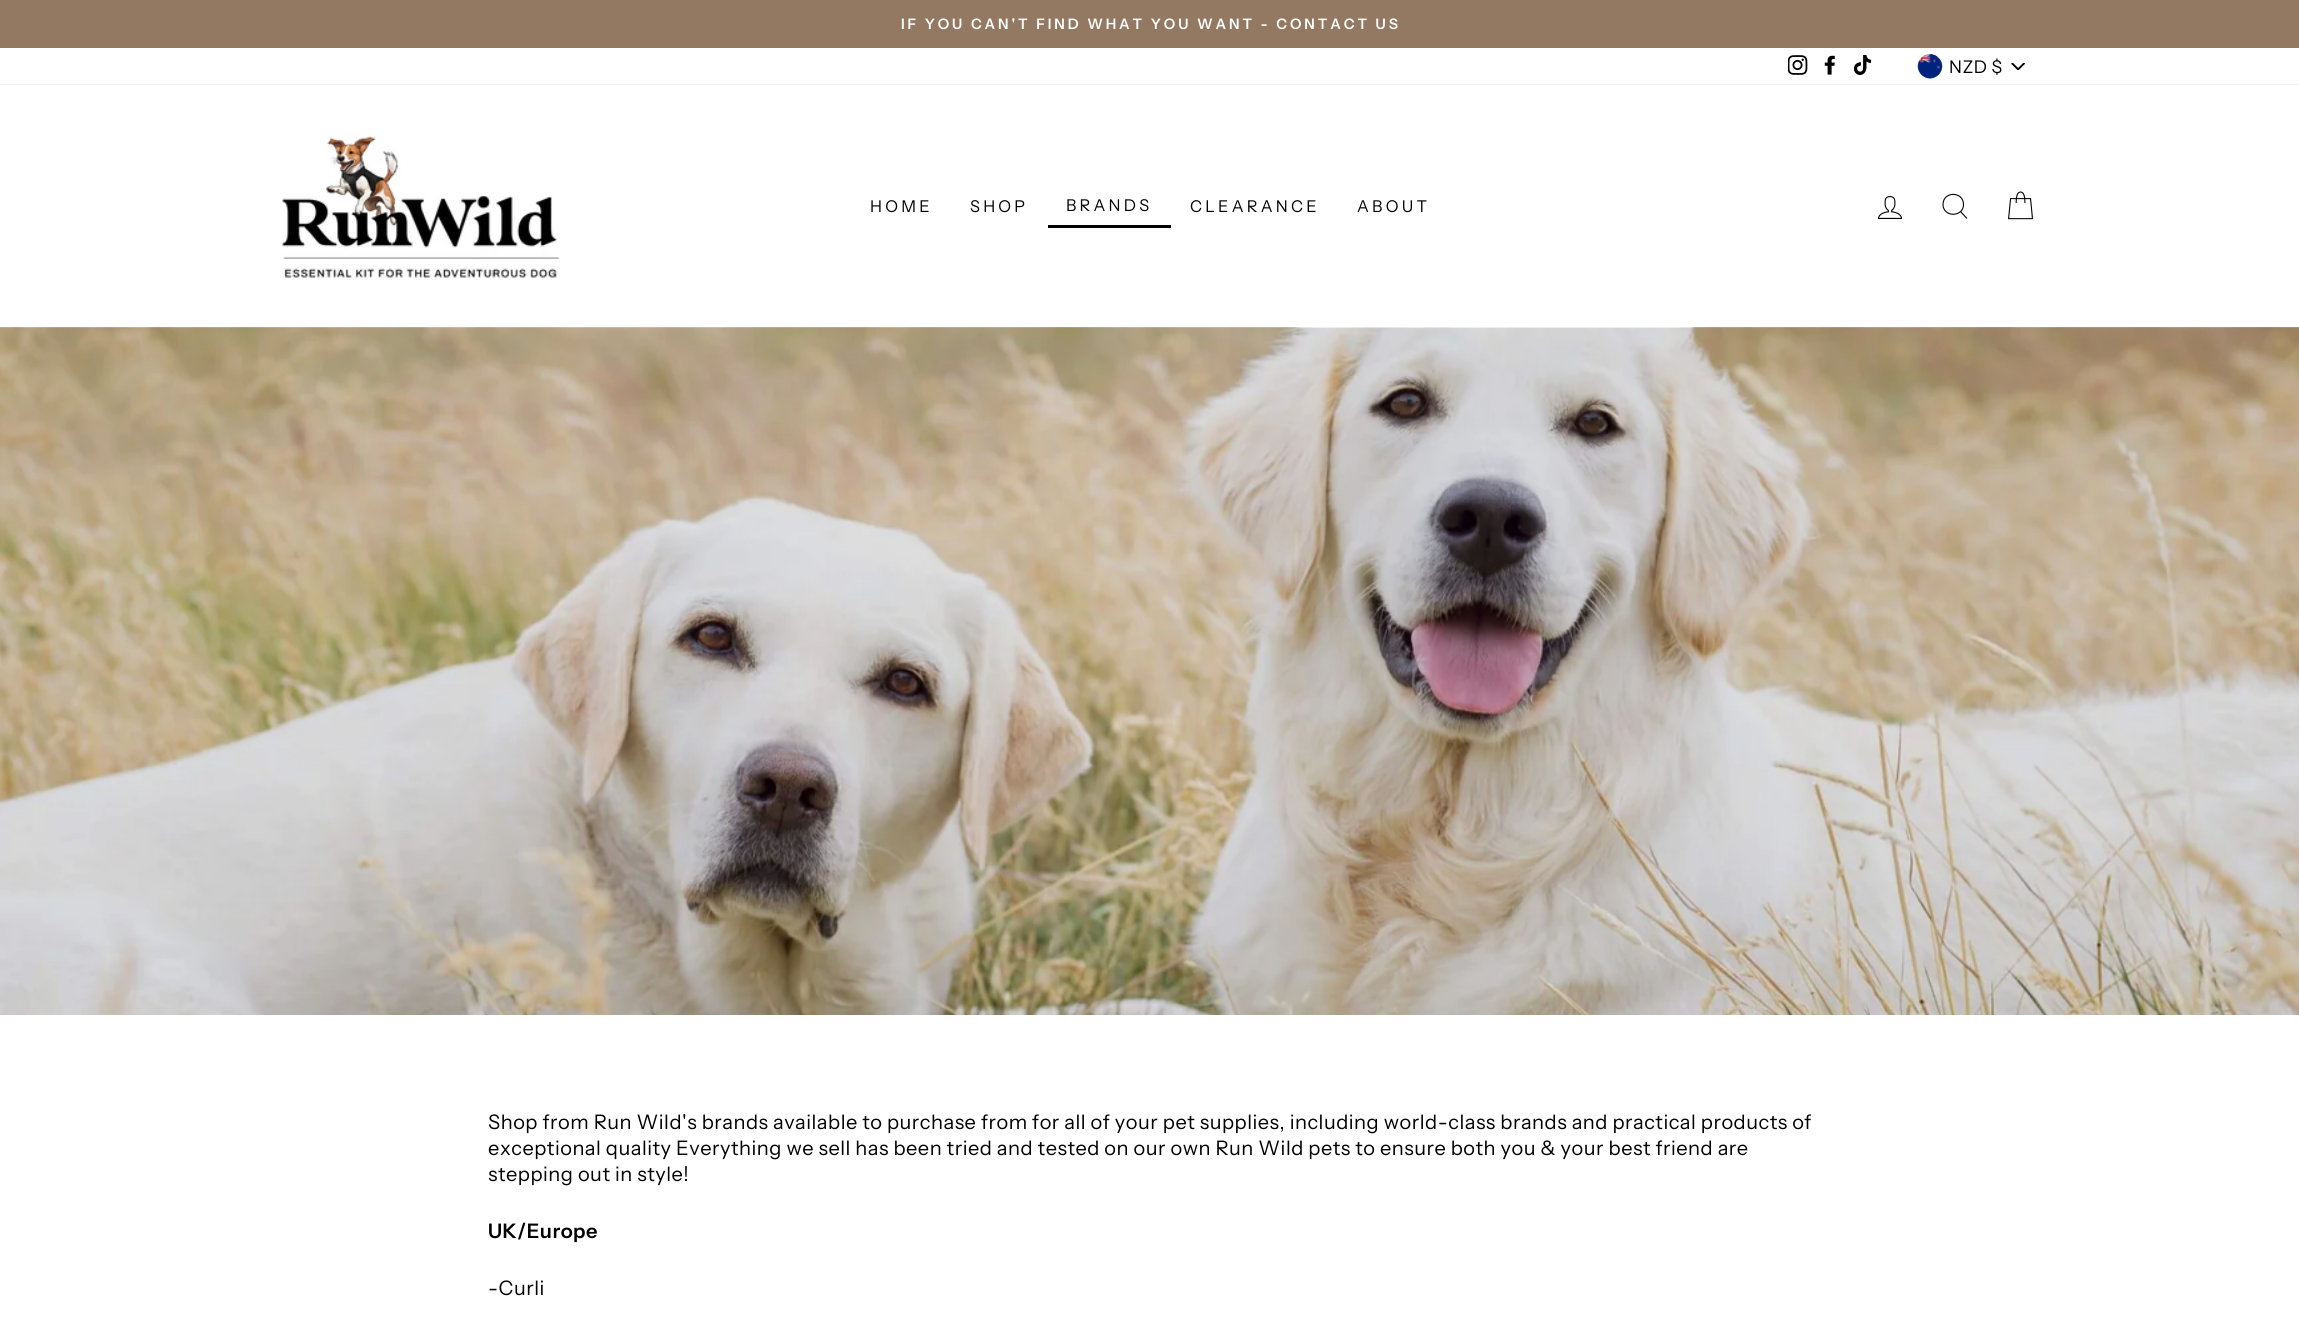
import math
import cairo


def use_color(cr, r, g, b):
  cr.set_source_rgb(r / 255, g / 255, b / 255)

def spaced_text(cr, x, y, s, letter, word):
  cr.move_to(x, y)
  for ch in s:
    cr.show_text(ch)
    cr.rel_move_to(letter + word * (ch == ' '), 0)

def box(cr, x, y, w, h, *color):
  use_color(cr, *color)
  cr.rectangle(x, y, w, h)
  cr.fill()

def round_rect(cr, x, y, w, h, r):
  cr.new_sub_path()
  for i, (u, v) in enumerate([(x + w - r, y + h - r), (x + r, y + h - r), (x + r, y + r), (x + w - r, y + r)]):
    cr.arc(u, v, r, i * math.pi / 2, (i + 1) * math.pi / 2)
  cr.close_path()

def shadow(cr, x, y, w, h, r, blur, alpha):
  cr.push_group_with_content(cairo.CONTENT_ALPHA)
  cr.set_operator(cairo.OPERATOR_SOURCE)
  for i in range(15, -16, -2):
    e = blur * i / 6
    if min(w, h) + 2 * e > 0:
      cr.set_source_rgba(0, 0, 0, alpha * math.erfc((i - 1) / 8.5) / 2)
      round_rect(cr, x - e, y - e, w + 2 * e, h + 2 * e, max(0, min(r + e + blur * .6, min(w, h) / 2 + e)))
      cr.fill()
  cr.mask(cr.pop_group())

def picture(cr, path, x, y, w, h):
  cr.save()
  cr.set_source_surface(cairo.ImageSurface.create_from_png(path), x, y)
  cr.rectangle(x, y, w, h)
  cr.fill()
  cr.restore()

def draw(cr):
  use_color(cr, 255, 255, 255)
  cr.paint()
  box(cr, 0, 0, 2299, 48, 148, 121, 98)
  picture(cr, "img_01.png", 1788, 55, 20, 20)
  picture(cr, "img_02.png", 1824, 55, 11, 20)
  picture(cr, "img_03.png", 1853, 55, 19, 20)
  picture(cr, "img_04.png", 2011, 63, 14, 7)
  picture(cr, "img_05.png", 1917, 53, 26, 26)
  use_color(cr, 0, 0, 0)
  shadow(cr, 0, 85, 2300, 243, 0, 0.5, 0.2)
  box(cr, 0, 85, 2299, 242, 255, 255, 255)
  picture(cr, "img_06.png", 282, 134, 278, 144)
  box(cr, 1048, 225, 123, 3, 0, 0, 0)
  picture(cr, "img_07.png", 1878, 196, 24, 23)
  cr.new_path()
  cr.move_to(1963.5, 204.5)
  cr.curve_to(1963.5, 217.5, 1943, 217.5, 1943, 204.5)
  cr.curve_to(1943, 191, 1963.5, 191, 1963.5, 204.5)
  cr.close_path()
  cr.move_to(1967, 218.5)
  cr.line_to(1960.5, 211.5)
  cr.set_line_width(1.1)
  cr.stroke()
  picture(cr, "img_08.png", 2008, 191, 26, 29)
  picture(cr, "img_09.png", 0, 327, 2299, 688)
  cr.select_font_face("Instrument Sans SemiBold")
  cr.set_font_size(14.45)
  use_color(cr, 255, 255, 255)
  spaced_text(cr, 901, 29, "IF YOU CAN'T FIND WHAT YOU WANT - CONTACT US", 2.9, 0)
  cr.select_font_face("Instrument Sans")
  cr.set_font_size(17.5)
  use_color(cr, 0, 0, 0)
  spaced_text(cr, 1949, 73, "NZD $", 0.5, 0)
  cr.set_font_size(16.25)
  spaced_text(cr, 870, 212, "HOME", 3.25, 0)
  spaced_text(cr, 970, 212, "SHOP", 3.25, 0)
  spaced_text(cr, 1066, 211, "BRANDS", 3.25, 0)
  spaced_text(cr, 1190, 212, "CLEARANCE", 3.25, 0)
  spaced_text(cr, 1357, 212, "ABOUT", 3.25, 0)
  cr.set_font_size(20)
  spaced_text(cr, 488, 1129, "Shop from Run Wild's brands available to purchase from for all of your pet supplies, including world-class brands and practical products of", 0.5, 0)
  spaced_text(cr, 488, 1155, "exceptional quality Everything we sell has been tried and tested on our own Run Wild pets to ensure both you & your best friend are", 0.5, 0)
  spaced_text(cr, 488, 1181, "stepping out in style!", 0.5, 0)
  cr.select_font_face("Instrument Sans SemiBold")
  spaced_text(cr, 488, 1238, "UK/Europe", 0.5, 0)
  cr.select_font_face("Instrument Sans")
  spaced_text(cr, 488, 1295, "-Curli", 0.5, 0)


surface = cairo.ImageSurface(cairo.FORMAT_RGB24, 2299, 1338)
cr = cairo.Context(surface)
options = cairo.FontOptions()
options.set_hint_metrics(cairo.HINT_METRICS_OFF)
options.set_hint_style(cairo.HINT_STYLE_NONE)
cr.set_font_options(options)
cr.set_miter_limit(4)
draw(cr)
surface.write_to_png("out.png")
